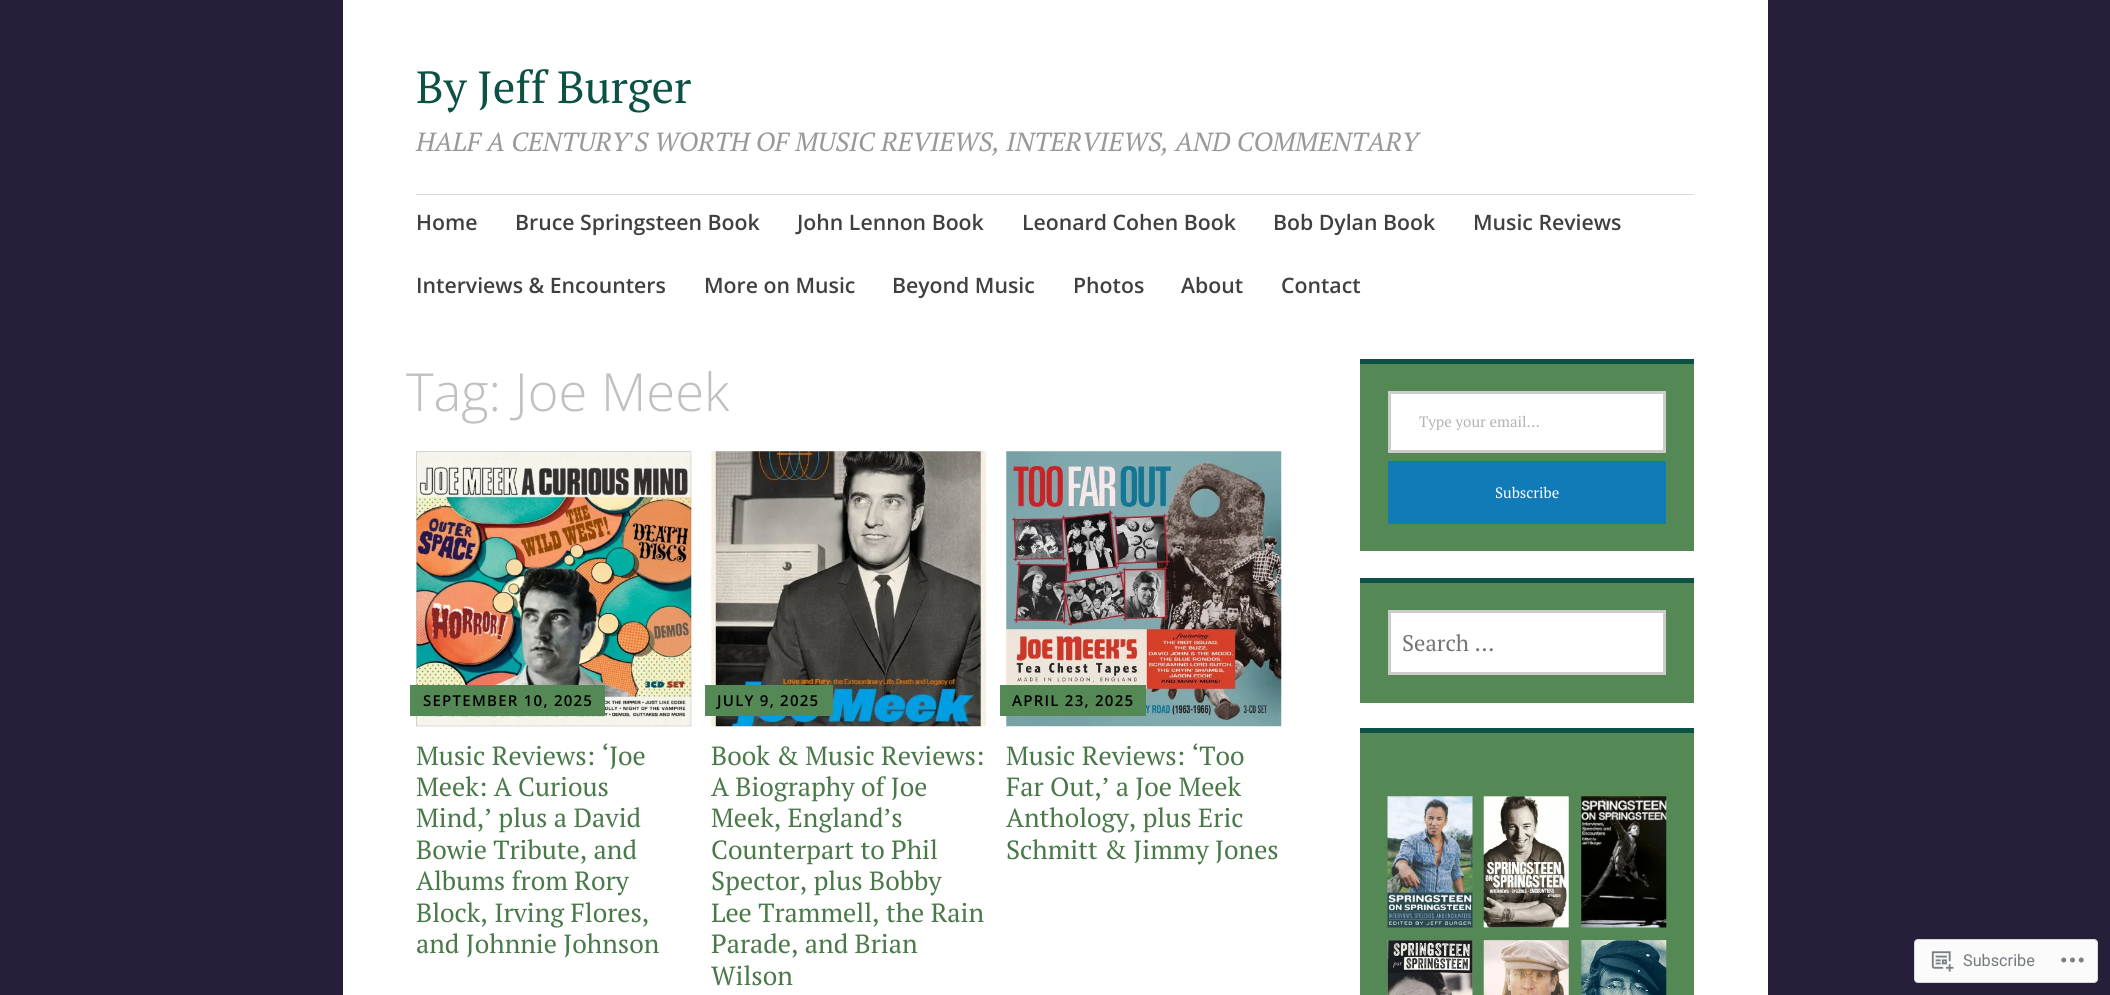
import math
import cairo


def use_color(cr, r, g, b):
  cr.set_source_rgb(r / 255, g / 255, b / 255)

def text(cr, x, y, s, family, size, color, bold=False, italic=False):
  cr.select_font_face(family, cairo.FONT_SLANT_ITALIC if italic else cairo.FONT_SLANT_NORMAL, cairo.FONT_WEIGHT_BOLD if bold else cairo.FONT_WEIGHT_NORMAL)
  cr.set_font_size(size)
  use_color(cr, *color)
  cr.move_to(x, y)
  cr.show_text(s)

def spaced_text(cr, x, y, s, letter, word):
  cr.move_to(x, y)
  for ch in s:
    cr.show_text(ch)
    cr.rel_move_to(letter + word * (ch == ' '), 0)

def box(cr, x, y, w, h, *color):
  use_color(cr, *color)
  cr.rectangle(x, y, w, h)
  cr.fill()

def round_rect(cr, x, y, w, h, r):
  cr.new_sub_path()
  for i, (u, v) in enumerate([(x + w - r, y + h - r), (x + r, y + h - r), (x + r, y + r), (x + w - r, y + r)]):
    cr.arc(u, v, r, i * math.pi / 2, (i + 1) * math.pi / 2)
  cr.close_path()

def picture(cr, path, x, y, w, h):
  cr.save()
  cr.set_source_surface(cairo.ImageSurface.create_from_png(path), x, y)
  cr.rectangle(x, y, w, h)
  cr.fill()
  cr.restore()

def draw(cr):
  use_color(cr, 39, 30, 58)
  cr.paint()
  box(cr, 343, 0, 1425, 995, 255, 255, 255)
  box(cr, 416, 194, 1278, 1, 217, 217, 217)
  picture(cr, "img_01.png", 416, 451, 276, 276)
  box(cr, 410, 685, 195, 31, 84, 136, 84)
  picture(cr, "img_02.png", 711, 451, 276, 276)
  box(cr, 705, 685, 128, 31, 84, 136, 84)
  picture(cr, "img_03.png", 1006, 451, 276, 276)
  box(cr, 1000, 685, 146, 31, 84, 136, 84)
  box(cr, 1360, 364, 334, 187, 84, 136, 84)
  box(cr, 1360, 359, 334, 5, 11, 81, 68)
  use_color(cr, 255, 255, 255)
  cr.rectangle(1389.5, 392.5, 275, 59)
  cr.fill_preserve()
  use_color(cr, 204, 204, 204)
  cr.set_line_width(3)
  cr.stroke()
  box(cr, 1388, 461, 278, 63, 17, 123, 184)
  box(cr, 1360, 583, 334, 120, 84, 136, 84)
  box(cr, 1360, 578, 334, 5, 11, 81, 68)
  use_color(cr, 255, 255, 255)
  cr.rectangle(1389.5, 611.5, 275, 62)
  cr.fill_preserve()
  use_color(cr, 204, 204, 204)
  cr.stroke()
  box(cr, 1360, 733, 334, 262, 84, 136, 84)
  box(cr, 1360, 728, 334, 5, 11, 81, 68)
  picture(cr, "img_04.png", 1387, 796, 86, 132)
  picture(cr, "img_05.png", 1483, 796, 86, 132)
  picture(cr, "img_06.png", 1581, 796, 86, 132)
  picture(cr, "img_07.png", 1387, 940, 86, 55)
  picture(cr, "img_08.png", 1483, 940, 86, 55)
  picture(cr, "img_09.png", 1581, 940, 86, 55)
  use_color(cr, 251, 251, 251)
  round_rect(cr, 1914.5, 939.5, 183, 43, 3.5)
  cr.fill_preserve()
  use_color(cr, 216, 216, 219)
  cr.set_line_width(1)
  cr.stroke()
  picture(cr, "img_10.png", 1931, 951, 23, 21)
  picture(cr, "img_11.png", 2061, 957, 23, 6)
  text(cr, 416, 103, "By Jeff Burger", "PT Serif", 45, (11, 81, 68))
  text(cr, 416, 151, "HALF A CENTURY'S WORTH OF MUSIC REVIEWS, INTERVIEWS, AND COMMENTARY", "PT Serif", 26.25, (153, 153, 153), italic=True)
  text(cr, 416, 230, "Home", "Open Sans SemiBold", 21.25, (64, 64, 64))
  text(cr, 515, 230, "Bruce Springsteen Book", "Open Sans SemiBold", 21.25, (64, 64, 64))
  text(cr, 797, 230, "John Lennon Book", "Open Sans SemiBold", 21.25, (64, 64, 64))
  text(cr, 1022, 230, "Leonard Cohen Book", "Open Sans SemiBold", 21.25, (64, 64, 64))
  text(cr, 1273, 230, "Bob Dylan Book", "Open Sans SemiBold", 21.25, (64, 64, 64))
  text(cr, 1473, 230, "Music Reviews", "Open Sans SemiBold", 21.25, (64, 64, 64))
  text(cr, 416, 293, "Interviews & Encounters", "Open Sans SemiBold", 21.25, (64, 64, 64))
  text(cr, 704, 293, "More on Music", "Open Sans SemiBold", 21.25, (64, 64, 64))
  text(cr, 892, 293, "Beyond Music", "Open Sans SemiBold", 21.25, (64, 64, 64))
  text(cr, 1073, 293, "Photos", "Open Sans SemiBold", 21.25, (64, 64, 64))
  text(cr, 1181, 293, "About", "Open Sans SemiBold", 21.25, (64, 64, 64))
  text(cr, 1281, 293, "Contact", "Open Sans SemiBold", 21.25, (64, 64, 64))
  text(cr, 406, 411, "Tag: Joe Meek", "Open Sans Light", 52.5, (192, 192, 192))
  cr.select_font_face("Open Sans SemiBold")
  cr.set_font_size(15)
  use_color(cr, 0, 0, 0)
  spaced_text(cr, 423, 706, "SEPTEMBER 10, 2025", 1.25, 0)
  text(cr, 416, 765, "Music Reviews: ‘Joe", "PT Serif", 26.25, (73, 120, 73))
  text(cr, 416, 796, "Meek: A Curious", "PT Serif", 26.25, (73, 120, 73))
  text(cr, 416, 827, "Mind,’ plus a David", "PT Serif", 26.25, (73, 120, 73))
  text(cr, 416, 859, "Bowie Tribute, and", "PT Serif", 26.25, (73, 120, 73))
  text(cr, 416, 890, "Albums from Rory", "PT Serif", 26.25, (73, 120, 73))
  text(cr, 416, 922, "Block, Irving Flores,", "PT Serif", 26.25, (73, 120, 73))
  text(cr, 416, 953, "and Johnnie Johnson", "PT Serif", 26.25, (73, 120, 73))
  cr.select_font_face("Open Sans SemiBold")
  cr.set_font_size(15)
  use_color(cr, 0, 0, 0)
  spaced_text(cr, 717, 706, "JULY 9, 2025", 1.25, 0)
  text(cr, 711, 765, "Book & Music Reviews:", "PT Serif", 26.25, (73, 120, 73))
  text(cr, 711, 796, "A Biography of Joe", "PT Serif", 26.25, (73, 120, 73))
  text(cr, 711, 827, "Meek, England’s", "PT Serif", 26.25, (73, 120, 73))
  text(cr, 711, 859, "Counterpart to Phil", "PT Serif", 26.25, (73, 120, 73))
  text(cr, 711, 890, "Spector, plus Bobby", "PT Serif", 26.25, (73, 120, 73))
  text(cr, 711, 922, "Lee Trammell, the Rain", "PT Serif", 26.25, (73, 120, 73))
  text(cr, 711, 953, "Parade, and Brian", "PT Serif", 26.25, (73, 120, 73))
  text(cr, 711, 985, "Wilson", "PT Serif", 26.25, (73, 120, 73))
  cr.select_font_face("Open Sans SemiBold")
  cr.set_font_size(15)
  use_color(cr, 0, 0, 0)
  spaced_text(cr, 1012, 706, "APRIL 23, 2025", 1.25, 0)
  text(cr, 1006, 765, "Music Reviews: ‘Too", "PT Serif", 26.25, (73, 120, 73))
  text(cr, 1006, 796, "Far Out,’ a Joe Meek", "PT Serif", 26.25, (73, 120, 73))
  text(cr, 1006, 827, "Anthology, plus Eric", "PT Serif", 26.25, (73, 120, 73))
  text(cr, 1006, 859, "Schmitt & Jimmy Jones", "PT Serif", 26.25, (73, 120, 73))
  text(cr, 1419, 427, "Type your email…", "PT Serif", 15, (179, 179, 179))
  text(cr, 1495, 498, "Subscribe", "PT Serif", 15, (255, 255, 255))
  text(cr, 1402, 651, "Search …", "PT Serif", 22.5, (117, 117, 117))
  text(cr, 1963, 966, "Subscribe", "Roboto", 16.25, (118, 122, 129))


surface = cairo.ImageSurface(cairo.FORMAT_RGB24, 2110, 995)
cr = cairo.Context(surface)
options = cairo.FontOptions()
options.set_hint_metrics(cairo.HINT_METRICS_OFF)
options.set_hint_style(cairo.HINT_STYLE_NONE)
cr.set_font_options(options)
cr.set_miter_limit(4)
draw(cr)
surface.write_to_png("out.png")
